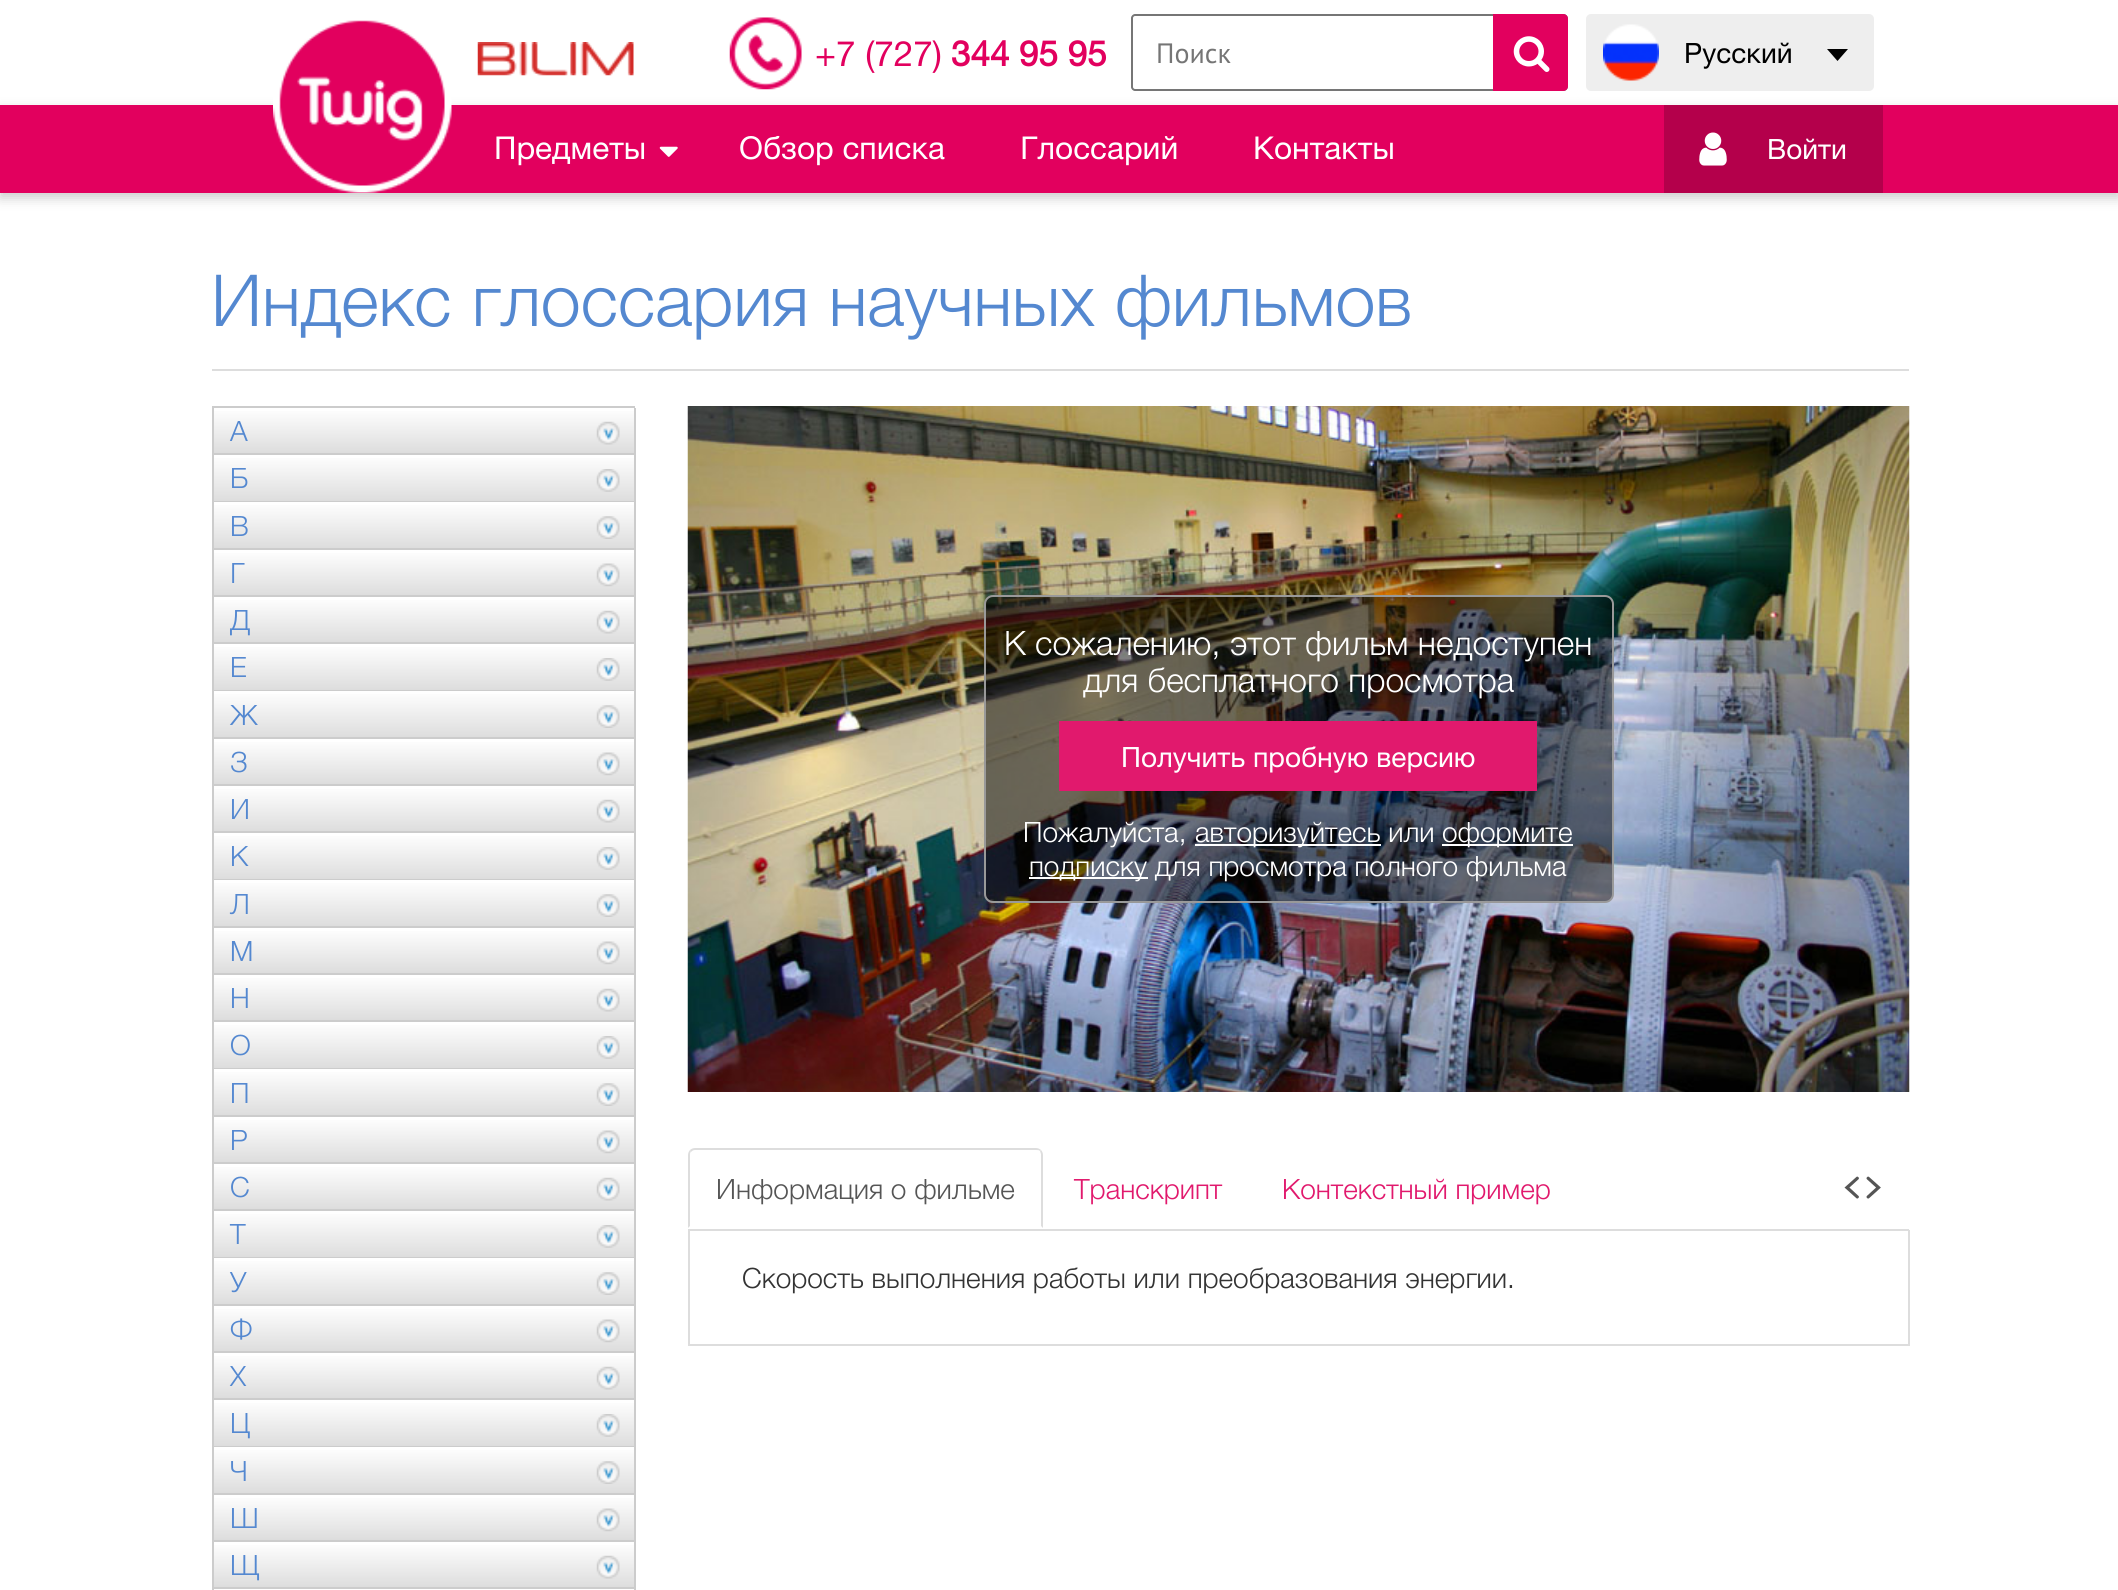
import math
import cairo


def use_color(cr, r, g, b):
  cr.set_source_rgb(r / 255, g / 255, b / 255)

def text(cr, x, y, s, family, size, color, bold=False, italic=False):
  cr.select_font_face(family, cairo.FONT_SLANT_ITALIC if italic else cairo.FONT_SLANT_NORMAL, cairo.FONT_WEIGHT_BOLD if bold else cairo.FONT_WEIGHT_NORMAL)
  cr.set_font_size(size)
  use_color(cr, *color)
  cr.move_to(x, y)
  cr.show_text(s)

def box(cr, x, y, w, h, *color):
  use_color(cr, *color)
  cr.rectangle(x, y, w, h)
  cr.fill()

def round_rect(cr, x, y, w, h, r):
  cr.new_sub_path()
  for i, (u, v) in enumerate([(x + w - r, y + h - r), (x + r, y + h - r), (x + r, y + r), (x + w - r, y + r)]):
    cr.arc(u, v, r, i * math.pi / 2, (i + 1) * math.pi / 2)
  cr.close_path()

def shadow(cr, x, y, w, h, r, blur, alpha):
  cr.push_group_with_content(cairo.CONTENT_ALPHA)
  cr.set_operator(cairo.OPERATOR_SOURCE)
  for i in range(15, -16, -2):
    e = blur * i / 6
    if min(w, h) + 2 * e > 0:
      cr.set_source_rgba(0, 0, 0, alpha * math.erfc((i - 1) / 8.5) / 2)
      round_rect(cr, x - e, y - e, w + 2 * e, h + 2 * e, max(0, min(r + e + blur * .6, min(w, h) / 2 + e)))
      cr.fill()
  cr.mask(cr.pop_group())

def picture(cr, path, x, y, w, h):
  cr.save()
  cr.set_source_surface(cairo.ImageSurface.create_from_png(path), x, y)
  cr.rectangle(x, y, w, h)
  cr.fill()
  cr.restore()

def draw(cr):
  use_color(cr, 255, 255, 255)
  cr.paint()
  picture(cr, "img_01.png", 477, 42, 157, 34)
  picture(cr, "img_02.png", 729, 17, 73, 73)
  use_color(cr, 118, 118, 118)
  cr.set_fill_rule(cairo.FILL_RULE_EVEN_ODD)
  cr.new_path()
  cr.move_to(1135, 14)
  cr.curve_to(1133, 14, 1131, 16, 1131, 18)
  cr.line_to(1131, 87)
  cr.curve_to(1131, 89, 1133, 91, 1135, 91)
  cr.line_to(1563, 91)
  cr.curve_to(1566, 91, 1568, 89, 1568, 86)
  cr.line_to(1568, 19)
  cr.curve_to(1568, 16, 1566, 14, 1563, 14)
  cr.close_path()
  cr.move_to(1135, 16)
  cr.curve_to(1134, 16, 1133, 17, 1133, 18)
  cr.line_to(1133, 87)
  cr.curve_to(1133, 88, 1134, 89, 1135, 89)
  cr.line_to(1564, 89)
  cr.curve_to(1565, 89, 1566, 88, 1566, 87)
  cr.line_to(1566, 18)
  cr.curve_to(1566, 17, 1565, 16, 1564, 16)
  cr.close_path()
  cr.fill()
  use_color(cr, 226, 0, 94)
  cr.new_path()
  cr.move_to(1493, 14)
  cr.line_to(1563, 14)
  cr.curve_to(1566, 14, 1568, 16, 1568, 19)
  cr.line_to(1568, 86)
  cr.curve_to(1568, 89, 1566, 91, 1563, 91)
  cr.line_to(1493, 91)
  cr.close_path()
  cr.fill()
  picture(cr, "img_03.png", 1513, 36, 37, 36)
  use_color(cr, 238, 238, 238)
  round_rect(cr, 1586, 14, 288, 77, 5)
  cr.fill()
  picture(cr, "img_04.png", 1603, 24, 56, 57)
  use_color(cr, 0, 0, 0)
  cr.set_fill_rule(cairo.FILL_RULE_WINDING)
  cr.new_path()
  cr.move_to(1827, 49)
  cr.line_to(1848, 49)
  cr.line_to(1837.5, 61)
  cr.close_path()
  cr.fill()
  use_color(cr, 0, 0, 0)
  shadow(cr, 0, 110, 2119, 88, 0, 6, 0.2)
  box(cr, 0, 105, 2118, 88, 226, 0, 94)
  picture(cr, "img_05.png", 273, 20, 179, 173)
  picture(cr, "img_06.png", 659, 146, 19, 11)
  box(cr, 1664, 105, 219, 88, 180, 0, 75)
  picture(cr, "img_07.png", 1699, 132, 28, 34)
  box(cr, 212, 369, 1697, 2, 221, 221, 221)
  box(cr, 212, 406, 423, 2, 204, 204, 204)
  box(cr, 634, 408, 2, 1182, 204, 204, 204)
  box(cr, 212, 453, 423, 2, 204, 204, 204)
  box(cr, 212, 408, 2, 47, 204, 204, 204)
  gradient = cairo.LinearGradient(424, 408, 424, 453)
  gradient.add_color_stop_rgba(0, 1, 1, 1, 1)
  gradient.add_color_stop_rgba(1, 0.867, 0.867, 0.867, 1)
  cr.set_source(gradient)
  cr.rectangle(214, 411, 420, 42)
  cr.fill()
  picture(cr, "img_08.png", 596, 421, 24, 24)
  box(cr, 212, 501, 423, 1, 204, 204, 204)
  box(cr, 212, 455, 2, 47, 204, 204, 204)
  gradient = cairo.LinearGradient(424, 455, 424, 501)
  gradient.add_color_stop_rgba(0, 1, 1, 1, 1)
  gradient.add_color_stop_rgba(1, 0.867, 0.867, 0.867, 1)
  cr.set_source(gradient)
  cr.rectangle(214, 458, 420, 43)
  cr.fill()
  picture(cr, "img_09.png", 596, 469, 24, 23)
  box(cr, 212, 548, 423, 2, 204, 204, 204)
  box(cr, 212, 502, 2, 48, 204, 204, 204)
  gradient = cairo.LinearGradient(424, 502, 424, 548)
  gradient.add_color_stop_rgba(0, 1, 1, 1, 1)
  gradient.add_color_stop_rgba(1, 0.867, 0.867, 0.867, 1)
  cr.set_source(gradient)
  cr.rectangle(214, 505, 420, 43)
  cr.fill()
  picture(cr, "img_10.png", 596, 516, 24, 23)
  box(cr, 212, 595, 423, 2, 204, 204, 204)
  box(cr, 212, 550, 2, 47, 204, 204, 204)
  gradient = cairo.LinearGradient(424, 550, 424, 595)
  gradient.add_color_stop_rgba(0, 1, 1, 1, 1)
  gradient.add_color_stop_rgba(1, 0.867, 0.867, 0.867, 1)
  cr.set_source(gradient)
  cr.rectangle(214, 553, 420, 42)
  cr.fill()
  picture(cr, "img_11.png", 596, 563, 24, 24)
  box(cr, 212, 642, 423, 2, 204, 204, 204)
  box(cr, 212, 597, 2, 47, 204, 204, 204)
  gradient = cairo.LinearGradient(424, 597, 424, 642)
  gradient.add_color_stop_rgba(0, 1, 1, 1, 1)
  gradient.add_color_stop_rgba(1, 0.867, 0.867, 0.867, 1)
  cr.set_source(gradient)
  cr.rectangle(214, 600, 420, 42)
  cr.fill()
  picture(cr, "img_08.png", 596, 610, 24, 24)
  box(cr, 212, 690, 423, 1, 204, 204, 204)
  box(cr, 212, 644, 2, 47, 204, 204, 204)
  gradient = cairo.LinearGradient(424, 644, 424, 690)
  gradient.add_color_stop_rgba(0, 1, 1, 1, 1)
  gradient.add_color_stop_rgba(1, 0.867, 0.867, 0.867, 1)
  cr.set_source(gradient)
  cr.rectangle(214, 647, 420, 43)
  cr.fill()
  picture(cr, "img_09.png", 596, 658, 24, 23)
  box(cr, 212, 737, 423, 2, 204, 204, 204)
  box(cr, 212, 691, 2, 48, 204, 204, 204)
  gradient = cairo.LinearGradient(424, 691, 424, 737)
  gradient.add_color_stop_rgba(0, 1, 1, 1, 1)
  gradient.add_color_stop_rgba(1, 0.867, 0.867, 0.867, 1)
  cr.set_source(gradient)
  cr.rectangle(214, 694, 420, 43)
  cr.fill()
  picture(cr, "img_10.png", 596, 705, 24, 23)
  box(cr, 212, 784, 423, 2, 204, 204, 204)
  box(cr, 212, 739, 2, 47, 204, 204, 204)
  gradient = cairo.LinearGradient(424, 739, 424, 784)
  gradient.add_color_stop_rgba(0, 1, 1, 1, 1)
  gradient.add_color_stop_rgba(1, 0.867, 0.867, 0.867, 1)
  cr.set_source(gradient)
  cr.rectangle(214, 742, 420, 42)
  cr.fill()
  picture(cr, "img_11.png", 596, 752, 24, 24)
  box(cr, 212, 831, 423, 2, 204, 204, 204)
  box(cr, 212, 786, 2, 47, 204, 204, 204)
  gradient = cairo.LinearGradient(424, 786, 424, 831)
  gradient.add_color_stop_rgba(0, 1, 1, 1, 1)
  gradient.add_color_stop_rgba(1, 0.867, 0.867, 0.867, 1)
  cr.set_source(gradient)
  cr.rectangle(214, 789, 420, 42)
  cr.fill()
  picture(cr, "img_08.png", 596, 799, 24, 24)
  box(cr, 212, 879, 423, 1, 204, 204, 204)
  box(cr, 212, 833, 2, 47, 204, 204, 204)
  gradient = cairo.LinearGradient(424, 833, 424, 879)
  gradient.add_color_stop_rgba(0, 1, 1, 1, 1)
  gradient.add_color_stop_rgba(1, 0.867, 0.867, 0.867, 1)
  cr.set_source(gradient)
  cr.rectangle(214, 836, 420, 43)
  cr.fill()
  picture(cr, "img_09.png", 596, 847, 24, 23)
  box(cr, 212, 926, 423, 2, 204, 204, 204)
  box(cr, 212, 880, 2, 48, 204, 204, 204)
  gradient = cairo.LinearGradient(424, 880, 424, 926)
  gradient.add_color_stop_rgba(0, 1, 1, 1, 1)
  gradient.add_color_stop_rgba(1, 0.867, 0.867, 0.867, 1)
  cr.set_source(gradient)
  cr.rectangle(214, 883, 420, 43)
  cr.fill()
  picture(cr, "img_10.png", 596, 894, 24, 23)
  box(cr, 212, 973, 423, 2, 204, 204, 204)
  box(cr, 212, 928, 2, 47, 204, 204, 204)
  gradient = cairo.LinearGradient(424, 928, 424, 973)
  gradient.add_color_stop_rgba(0, 1, 1, 1, 1)
  gradient.add_color_stop_rgba(1, 0.867, 0.867, 0.867, 1)
  cr.set_source(gradient)
  cr.rectangle(214, 931, 420, 42)
  cr.fill()
  picture(cr, "img_11.png", 596, 941, 24, 24)
  box(cr, 212, 1020, 423, 2, 204, 204, 204)
  box(cr, 212, 975, 2, 47, 204, 204, 204)
  gradient = cairo.LinearGradient(424, 975, 424, 1020)
  gradient.add_color_stop_rgba(0, 1, 1, 1, 1)
  gradient.add_color_stop_rgba(1, 0.867, 0.867, 0.867, 1)
  cr.set_source(gradient)
  cr.rectangle(214, 978, 420, 42)
  cr.fill()
  picture(cr, "img_08.png", 596, 988, 24, 24)
  box(cr, 212, 1068, 423, 1, 204, 204, 204)
  box(cr, 212, 1022, 2, 47, 204, 204, 204)
  gradient = cairo.LinearGradient(424, 1022, 424, 1068)
  gradient.add_color_stop_rgba(0, 1, 1, 1, 1)
  gradient.add_color_stop_rgba(1, 0.867, 0.867, 0.867, 1)
  cr.set_source(gradient)
  cr.rectangle(214, 1025, 420, 43)
  cr.fill()
  picture(cr, "img_09.png", 596, 1036, 24, 23)
  box(cr, 212, 1115, 423, 2, 204, 204, 204)
  box(cr, 212, 1069, 2, 48, 204, 204, 204)
  gradient = cairo.LinearGradient(424, 1069, 424, 1115)
  gradient.add_color_stop_rgba(0, 1, 1, 1, 1)
  gradient.add_color_stop_rgba(1, 0.867, 0.867, 0.867, 1)
  cr.set_source(gradient)
  cr.rectangle(214, 1072, 420, 43)
  cr.fill()
  picture(cr, "img_10.png", 596, 1083, 24, 23)
  box(cr, 212, 1162, 423, 2, 204, 204, 204)
  box(cr, 212, 1117, 2, 47, 204, 204, 204)
  gradient = cairo.LinearGradient(424, 1117, 424, 1162)
  gradient.add_color_stop_rgba(0, 1, 1, 1, 1)
  gradient.add_color_stop_rgba(1, 0.867, 0.867, 0.867, 1)
  cr.set_source(gradient)
  cr.rectangle(214, 1120, 420, 42)
  cr.fill()
  picture(cr, "img_11.png", 596, 1130, 24, 24)
  box(cr, 212, 1209, 423, 2, 204, 204, 204)
  box(cr, 212, 1164, 2, 47, 204, 204, 204)
  gradient = cairo.LinearGradient(424, 1164, 424, 1209)
  gradient.add_color_stop_rgba(0, 1, 1, 1, 1)
  gradient.add_color_stop_rgba(1, 0.867, 0.867, 0.867, 1)
  cr.set_source(gradient)
  cr.rectangle(214, 1167, 420, 42)
  cr.fill()
  picture(cr, "img_08.png", 596, 1177, 24, 24)
  box(cr, 212, 1257, 423, 1, 204, 204, 204)
  box(cr, 212, 1211, 2, 47, 204, 204, 204)
  gradient = cairo.LinearGradient(424, 1211, 424, 1257)
  gradient.add_color_stop_rgba(0, 1, 1, 1, 1)
  gradient.add_color_stop_rgba(1, 0.867, 0.867, 0.867, 1)
  cr.set_source(gradient)
  cr.rectangle(214, 1214, 420, 43)
  cr.fill()
  picture(cr, "img_09.png", 596, 1225, 24, 23)
  box(cr, 212, 1304, 423, 2, 204, 204, 204)
  box(cr, 212, 1258, 2, 48, 204, 204, 204)
  gradient = cairo.LinearGradient(424, 1258, 424, 1304)
  gradient.add_color_stop_rgba(0, 1, 1, 1, 1)
  gradient.add_color_stop_rgba(1, 0.867, 0.867, 0.867, 1)
  cr.set_source(gradient)
  cr.rectangle(214, 1261, 420, 43)
  cr.fill()
  picture(cr, "img_10.png", 596, 1272, 24, 23)
  box(cr, 212, 1351, 423, 2, 204, 204, 204)
  box(cr, 212, 1306, 2, 47, 204, 204, 204)
  gradient = cairo.LinearGradient(424, 1306, 424, 1351)
  gradient.add_color_stop_rgba(0, 1, 1, 1, 1)
  gradient.add_color_stop_rgba(1, 0.867, 0.867, 0.867, 1)
  cr.set_source(gradient)
  cr.rectangle(214, 1309, 420, 42)
  cr.fill()
  picture(cr, "img_11.png", 596, 1319, 24, 24)
  box(cr, 212, 1398, 423, 2, 204, 204, 204)
  box(cr, 212, 1353, 2, 47, 204, 204, 204)
  gradient = cairo.LinearGradient(424, 1353, 424, 1398)
  gradient.add_color_stop_rgba(0, 1, 1, 1, 1)
  gradient.add_color_stop_rgba(1, 0.867, 0.867, 0.867, 1)
  cr.set_source(gradient)
  cr.rectangle(214, 1356, 420, 42)
  cr.fill()
  picture(cr, "img_08.png", 596, 1366, 24, 24)
  box(cr, 212, 1446, 423, 1, 204, 204, 204)
  box(cr, 212, 1400, 2, 47, 204, 204, 204)
  gradient = cairo.LinearGradient(424, 1400, 424, 1446)
  gradient.add_color_stop_rgba(0, 1, 1, 1, 1)
  gradient.add_color_stop_rgba(1, 0.867, 0.867, 0.867, 1)
  cr.set_source(gradient)
  cr.rectangle(214, 1403, 420, 43)
  cr.fill()
  picture(cr, "img_09.png", 596, 1414, 24, 23)
  box(cr, 212, 1493, 423, 2, 204, 204, 204)
  box(cr, 212, 1447, 2, 48, 204, 204, 204)
  gradient = cairo.LinearGradient(424, 1447, 424, 1493)
  gradient.add_color_stop_rgba(0, 1, 1, 1, 1)
  gradient.add_color_stop_rgba(1, 0.867, 0.867, 0.867, 1)
  cr.set_source(gradient)
  cr.rectangle(214, 1450, 420, 43)
  cr.fill()
  picture(cr, "img_10.png", 596, 1461, 24, 23)
  box(cr, 212, 1540, 423, 2, 204, 204, 204)
  box(cr, 212, 1495, 2, 47, 204, 204, 204)
  gradient = cairo.LinearGradient(424, 1495, 424, 1540)
  gradient.add_color_stop_rgba(0, 1, 1, 1, 1)
  gradient.add_color_stop_rgba(1, 0.867, 0.867, 0.867, 1)
  cr.set_source(gradient)
  cr.rectangle(214, 1498, 420, 42)
  cr.fill()
  picture(cr, "img_11.png", 596, 1508, 24, 24)
  box(cr, 212, 1587, 423, 2, 204, 204, 204)
  box(cr, 212, 1542, 2, 48, 204, 204, 204)
  gradient = cairo.LinearGradient(424, 1542, 424, 1587)
  gradient.add_color_stop_rgba(0, 1, 1, 1, 1)
  gradient.add_color_stop_rgba(1, 0.867, 0.867, 0.867, 1)
  cr.set_source(gradient)
  cr.rectangle(214, 1545, 420, 42)
  cr.fill()
  picture(cr, "img_08.png", 596, 1555, 24, 24)
  picture(cr, "img_12.png", 687, 406, 1223, 686)
  cr.set_source_rgba(0, 0, 0, 0.5)
  round_rect(cr, 985, 596, 628, 306, 8)
  cr.fill_preserve()
  use_color(cr, 153, 153, 153)
  cr.stroke()
  box(cr, 1059, 721, 478, 70, 225, 25, 109)
  box(cr, 1195, 844, 186, 2, 255, 255, 255)
  box(cr, 1442, 844, 131, 2, 255, 255, 255)
  box(cr, 1029, 877, 119, 2, 255, 255, 255)
  box(cr, 688, 1229, 1221, 2, 221, 221, 221)
  cr.new_path()
  cr.move_to(695, 1148)
  cr.curve_to(693, 1148, 691, 1149, 690, 1150)
  cr.line_to(691, 1152)
  cr.curve_to(692, 1151, 693, 1150, 695, 1150)
  cr.line_to(1036, 1150)
  cr.curve_to(1038, 1150, 1039, 1150, 1040, 1151)
  cr.line_to(1041, 1150)
  cr.curve_to(1040, 1149, 1038, 1148, 1036, 1148)
  cr.close_path()
  cr.fill()
  cr.new_path()
  cr.move_to(1043, 1228)
  cr.line_to(1043, 1155)
  cr.curve_to(1043, 1153, 1042, 1151, 1041, 1150)
  cr.line_to(1040, 1151)
  cr.line_to(1041, 1154)
  cr.line_to(1041, 1226)
  cr.close_path()
  cr.fill()
  cr.new_path()
  cr.move_to(690, 1150)
  cr.curve_to(689, 1151, 688, 1153, 688, 1155)
  cr.line_to(688, 1228)
  cr.line_to(690, 1226)
  cr.line_to(690, 1155)
  cr.curve_to(690, 1154, 690, 1152, 691, 1152)
  cr.close_path()
  cr.fill()
  picture(cr, "img_13.png", 1844, 1176, 37, 23)
  box(cr, 1908, 1230, 2, 116, 221, 221, 221)
  box(cr, 688, 1344, 1221, 2, 221, 221, 221)
  box(cr, 688, 1230, 2, 116, 221, 221, 221)
  text(cr, 815, 66, "+7 (727)", "Helvetica Neue", 35, (226, 0, 94))
  text(cr, 951, 66, "344 95 95", "Helvetica Neue", 35, (226, 0, 94), bold=True)
  text(cr, 1156, 63, "Поиск", "PT Sans", 28, (117, 117, 117))
  text(cr, 1684, 63, "Русский", "Helvetica Neue", 28, (0, 0, 0))
  text(cr, 494, 159, "Предметы", "Helvetica Neue", 31.5, (255, 255, 255))
  text(cr, 739, 159, "Обзор списка", "Helvetica Neue", 31.5, (255, 255, 255))
  text(cr, 1020, 159, "Глоссарий", "Helvetica Neue", 31.5, (255, 255, 255))
  text(cr, 1253, 159, "Контакты", "Helvetica Neue", 31.5, (255, 255, 255))
  text(cr, 1767, 159, "Войти", "Helvetica Neue", 28, (255, 255, 255))
  text(cr, 211, 326, "Индекс глоссария научных фильмов", "Helvetica Neue Light", 71.75, (84, 136, 208))
  text(cr, 230, 441, "А", "Helvetica Neue Light", 28, (84, 136, 208))
  text(cr, 230, 488, "Б", "Helvetica Neue Light", 28, (84, 136, 208))
  text(cr, 230, 536, "В", "Helvetica Neue Light", 28, (84, 136, 208))
  text(cr, 230, 583, "Г", "Helvetica Neue Light", 28, (84, 136, 208))
  text(cr, 230, 630, "Д", "Helvetica Neue Light", 28, (84, 136, 208))
  text(cr, 230, 677, "Е", "Helvetica Neue Light", 28, (84, 136, 208))
  text(cr, 230, 725, "Ж", "Helvetica Neue Light", 28, (84, 136, 208))
  text(cr, 230, 772, "З", "Helvetica Neue Light", 28, (84, 136, 208))
  text(cr, 230, 819, "И", "Helvetica Neue Light", 28, (84, 136, 208))
  text(cr, 230, 866, "К", "Helvetica Neue Light", 28, (84, 136, 208))
  text(cr, 230, 914, "Л", "Helvetica Neue Light", 28, (84, 136, 208))
  text(cr, 230, 961, "М", "Helvetica Neue Light", 28, (84, 136, 208))
  text(cr, 230, 1008, "Н", "Helvetica Neue Light", 28, (84, 136, 208))
  text(cr, 230, 1055, "О", "Helvetica Neue Light", 28, (84, 136, 208))
  text(cr, 230, 1103, "П", "Helvetica Neue Light", 28, (84, 136, 208))
  text(cr, 230, 1150, "Р", "Helvetica Neue Light", 28, (84, 136, 208))
  text(cr, 230, 1197, "С", "Helvetica Neue Light", 28, (84, 136, 208))
  text(cr, 230, 1244, "Т", "Helvetica Neue Light", 28, (84, 136, 208))
  text(cr, 230, 1292, "У", "Helvetica Neue Light", 28, (84, 136, 208))
  text(cr, 230, 1339, "Ф", "Helvetica Neue Light", 28, (84, 136, 208))
  text(cr, 230, 1386, "Х", "Helvetica Neue Light", 28, (84, 136, 208))
  text(cr, 230, 1433, "Ц", "Helvetica Neue Light", 28, (84, 136, 208))
  text(cr, 230, 1481, "Ч", "Helvetica Neue Light", 28, (84, 136, 208))
  text(cr, 230, 1528, "Ш", "Helvetica Neue Light", 28, (84, 136, 208))
  text(cr, 230, 1575, "Щ", "Helvetica Neue Light", 28, (84, 136, 208))
  text(cr, 1004, 655, "К сожалению, этот фильм недоступен", "Helvetica Neue Light", 33.6, (255, 255, 255))
  text(cr, 1083, 692, "для бесплатного просмотра", "Helvetica Neue Light", 33.6, (255, 255, 255))
  text(cr, 1121, 767, "Получить пробную версию", "Helvetica Neue", 28, (255, 255, 255))
  text(cr, 1023, 842, "Пожалуйста,", "Helvetica Neue Light", 28, (255, 255, 255))
  text(cr, 1195, 842, "авторизуйтесь или", "Helvetica Neue Light", 28, (255, 255, 255))
  text(cr, 1442, 842, "оформите", "Helvetica Neue Light", 28, (255, 255, 255))
  text(cr, 1029, 876, "подписку для просмотра полного фильма", "Helvetica Neue Light", 28, (255, 255, 255))
  text(cr, 716, 1199, "Информация о фильме", "Helvetica Neue Light", 28, (85, 85, 85))
  text(cr, 1074, 1199, "Транскрипт", "Helvetica Neue Light", 28, (225, 25, 109))
  text(cr, 1282, 1199, "Контекстный пример", "Helvetica Neue Light", 28, (225, 25, 109))
  text(cr, 742, 1288, "Скорость выполнения работы или преобразования энергии.", "Helvetica Neue Light", 28, (51, 51, 51))


surface = cairo.ImageSurface(cairo.FORMAT_RGB24, 2118, 1590)
cr = cairo.Context(surface)
options = cairo.FontOptions()
options.set_hint_metrics(cairo.HINT_METRICS_OFF)
options.set_hint_style(cairo.HINT_STYLE_NONE)
cr.set_font_options(options)
cr.set_miter_limit(4)
draw(cr)
surface.write_to_png("out.png")
